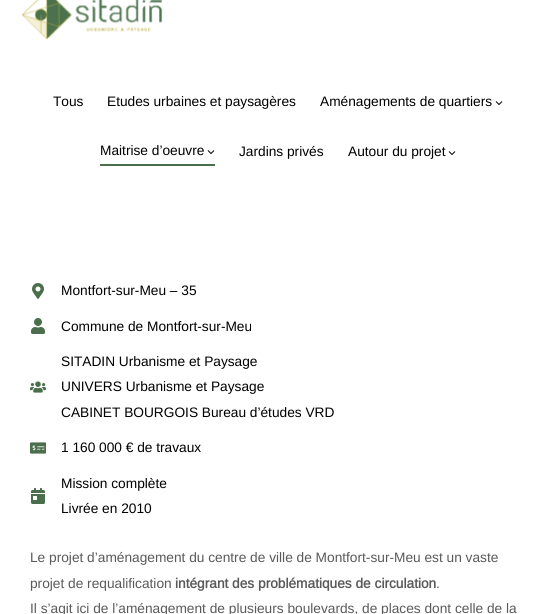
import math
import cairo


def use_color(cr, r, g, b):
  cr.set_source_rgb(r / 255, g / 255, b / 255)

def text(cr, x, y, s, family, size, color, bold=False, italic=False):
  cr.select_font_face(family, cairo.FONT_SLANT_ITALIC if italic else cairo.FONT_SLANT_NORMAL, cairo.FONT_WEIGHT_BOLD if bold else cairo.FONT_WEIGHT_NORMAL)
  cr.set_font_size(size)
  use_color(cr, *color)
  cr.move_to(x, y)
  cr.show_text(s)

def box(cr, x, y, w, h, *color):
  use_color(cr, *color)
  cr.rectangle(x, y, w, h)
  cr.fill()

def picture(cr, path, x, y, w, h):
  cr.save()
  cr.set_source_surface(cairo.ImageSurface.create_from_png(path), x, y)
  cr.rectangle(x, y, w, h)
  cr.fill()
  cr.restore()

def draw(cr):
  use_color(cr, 255, 255, 255)
  cr.paint()
  picture(cr, "img_01.png", 21, 0, 142, 40)
  cr.new_path()
  cr.move_to(496, 101.5)
  cr.line_to(499, 104.5)
  cr.line_to(502, 101.5)
  use_color(cr, 0, 0, 0)
  cr.set_line_width(1)
  cr.stroke()
  box(cr, 100, 164, 115, 2, 75, 111, 76)
  cr.new_path()
  cr.move_to(208, 150.5)
  cr.line_to(211, 153.5)
  cr.line_to(214, 150.5)
  use_color(cr, 0, 0, 0)
  cr.stroke()
  cr.new_path()
  cr.move_to(449, 151.5)
  cr.line_to(452, 154.5)
  cr.line_to(455, 151.5)
  cr.stroke()
  picture(cr, "img_02.png", 32, 283, 12, 16)
  picture(cr, "img_03.png", 31, 318, 14, 16)
  picture(cr, "img_04.png", 30, 381, 16, 12)
  picture(cr, "img_05.png", 30, 442, 16, 12)
  picture(cr, "img_06.png", 31, 488, 14, 16)
  text(cr, 53, 106, "Tous", "Arimo", 13.7, (0, 0, 0))
  text(cr, 107, 106, "Etudes urbaines et paysagères", "Arimo", 13.7, (0, 0, 0))
  text(cr, 320, 106, "Aménagements de quartiers", "Arimo", 13.7, (0, 0, 0))
  text(cr, 100, 155, "Maitrise d’oeuvre", "Arimo", 13.7, (0, 0, 0))
  text(cr, 239, 156, "Jardins privés", "Arimo", 13.7, (0, 0, 0))
  text(cr, 348, 156, "Autour du projet", "Arimo", 13.7, (0, 0, 0))
  text(cr, 61, 295, "Montfort-sur-Meu – 35", "Arimo", 13.7, (0, 0, 0))
  text(cr, 61, 331, "Commune de Montfort-sur-Meu", "Arimo", 13.7, (0, 0, 0))
  text(cr, 61, 366, "SITADIN Urbanisme et Paysage", "Arimo", 13.7, (0, 0, 0))
  text(cr, 61, 391, "UNIVERS Urbanisme et Paysage", "Arimo", 13.7, (0, 0, 0))
  text(cr, 61, 417, "CABINET BOURGOIS Bureau d’études VRD", "Arimo", 13.7, (0, 0, 0))
  text(cr, 61, 452, "1 160 000 € de travaux", "Arimo", 13.7, (0, 0, 0))
  text(cr, 61, 488, "Mission complète", "Arimo", 13.7, (0, 0, 0))
  text(cr, 61, 513, "Livrée en 2010", "Arimo", 13.7, (0, 0, 0))
  text(cr, 30, 562, "Le projet d’aménagement du centre de ville de Montfort-sur-Meu est un vaste", "Arimo", 13.7, (90, 90, 90))
  text(cr, 30, 588, "projet de requalification", "Arimo", 13.7, (90, 90, 90))
  text(cr, 175, 588, "intégrant des problématiques de circulation", "Arimo", 13.7, (90, 90, 90), bold=True)
  text(cr, 436, 588, ".", "Arimo", 13.7, (90, 90, 90))
  text(cr, 30, 613, "Il s’agit ici de l’aménagement de plusieurs boulevards, de places dont celle de la", "Arimo", 13.7, (90, 90, 90))


surface = cairo.ImageSurface(cairo.FORMAT_RGB24, 556, 614)
cr = cairo.Context(surface)
options = cairo.FontOptions()
options.set_hint_metrics(cairo.HINT_METRICS_OFF)
options.set_hint_style(cairo.HINT_STYLE_NONE)
cr.set_font_options(options)
cr.set_miter_limit(4)
draw(cr)
surface.write_to_png("out.png")
